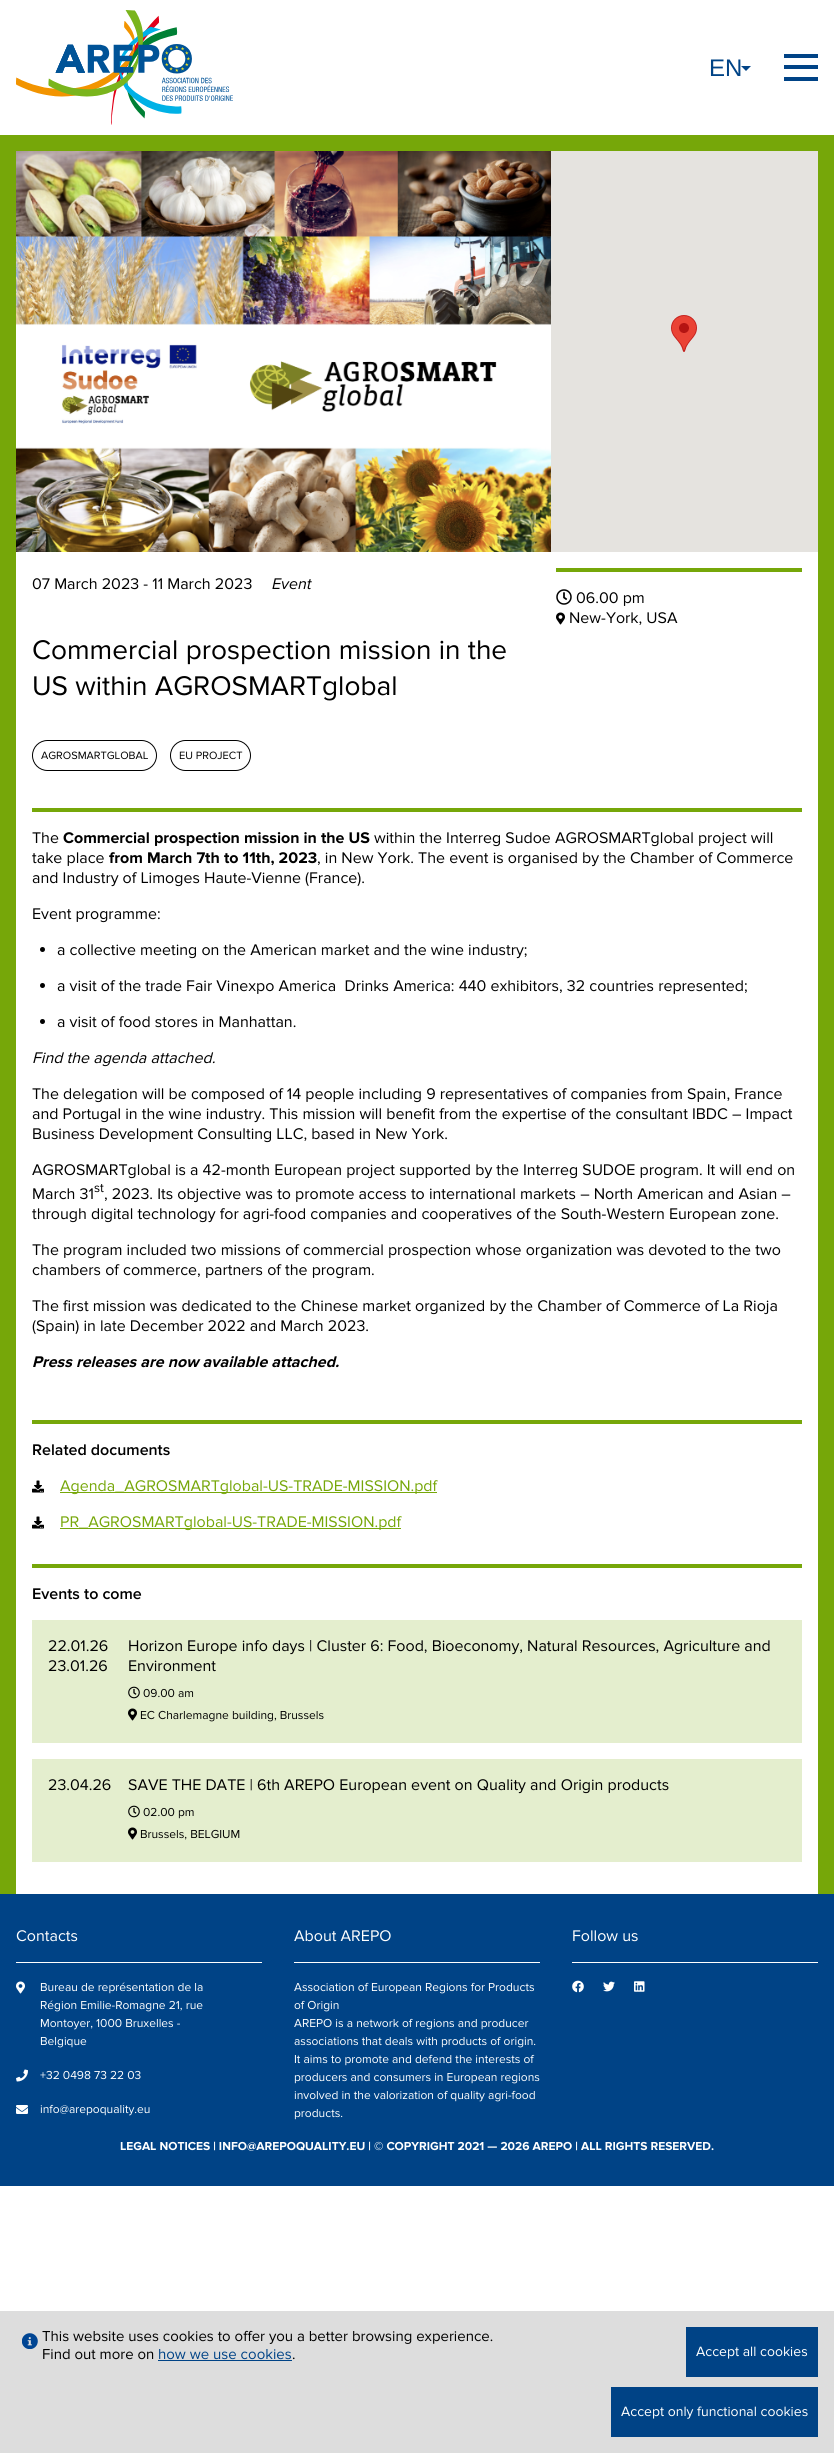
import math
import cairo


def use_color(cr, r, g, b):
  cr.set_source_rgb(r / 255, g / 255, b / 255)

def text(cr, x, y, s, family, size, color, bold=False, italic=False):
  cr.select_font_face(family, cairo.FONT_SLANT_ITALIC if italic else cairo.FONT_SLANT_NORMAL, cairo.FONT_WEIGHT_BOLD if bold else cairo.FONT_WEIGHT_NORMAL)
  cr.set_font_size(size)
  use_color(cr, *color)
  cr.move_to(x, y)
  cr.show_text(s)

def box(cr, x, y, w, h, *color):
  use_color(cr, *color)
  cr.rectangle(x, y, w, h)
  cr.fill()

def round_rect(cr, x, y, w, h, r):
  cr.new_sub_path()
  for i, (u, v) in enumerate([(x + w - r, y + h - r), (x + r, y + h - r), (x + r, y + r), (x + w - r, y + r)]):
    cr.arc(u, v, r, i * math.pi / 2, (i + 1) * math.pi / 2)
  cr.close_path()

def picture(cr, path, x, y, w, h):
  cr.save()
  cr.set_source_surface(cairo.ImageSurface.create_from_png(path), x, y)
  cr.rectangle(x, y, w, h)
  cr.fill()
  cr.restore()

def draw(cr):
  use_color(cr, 255, 255, 255)
  cr.paint()
  picture(cr, "img_01.png", 16, 10, 217, 115)
  use_color(cr, 0, 67, 134)
  cr.new_path()
  cr.move_to(741, 66)
  cr.line_to(746, 71)
  cr.line_to(751, 66)
  cr.close_path()
  cr.fill()
  box(cr, 784, 54, 34, 4, 0, 67, 134)
  box(cr, 784, 65, 34, 4, 0, 67, 134)
  box(cr, 784, 77, 34, 4, 0, 67, 134)
  box(cr, 0, 135, 834, 1759, 118, 167, 9)
  picture(cr, "img_02.png", 16, 151, 535, 401)
  box(cr, 551, 151, 267, 401, 229, 227, 223)
  picture(cr, "img_03.png", 671, 315, 26, 37)
  box(cr, 16, 552, 802, 1342, 255, 255, 255)
  round_rect(cr, 32.5, 740.5, 124, 30, 15)
  use_color(cr, 0, 0, 0)
  cr.set_line_width(1)
  cr.stroke()
  round_rect(cr, 170.5, 740.5, 80, 30, 15)
  cr.stroke()
  box(cr, 556, 568, 246, 4, 118, 167, 9)
  picture(cr, "img_04.png", 556, 589, 16, 16)
  picture(cr, "img_05.png", 556, 612, 9, 13)
  box(cr, 32, 808, 770, 4, 118, 167, 9)
  use_color(cr, 0, 0, 0)
  cr.arc(42.5, 949.5, 2.5, 0, 2 * math.pi)
  cr.fill()
  cr.arc(42.5, 985.5, 2.5, 0, 2 * math.pi)
  cr.fill()
  cr.arc(42.5, 1021.5, 2.5, 0, 2 * math.pi)
  cr.fill()
  box(cr, 32, 1420, 770, 4, 118, 167, 9)
  picture(cr, "img_06.png", 32, 1480, 12, 13)
  box(cr, 60, 1492, 377, 1, 118, 167, 9)
  picture(cr, "img_06.png", 32, 1516, 12, 13)
  box(cr, 60, 1528, 341, 1, 118, 167, 9)
  box(cr, 32, 1564, 770, 4, 118, 167, 9)
  box(cr, 32, 1620, 770, 123, 228, 238, 206)
  picture(cr, "img_07.png", 128, 1686, 12, 13)
  picture(cr, "img_08.png", 128, 1708, 9, 13)
  box(cr, 32, 1759, 770, 103, 228, 238, 206)
  picture(cr, "img_07.png", 128, 1805, 12, 13)
  picture(cr, "img_08.png", 128, 1827, 9, 13)
  box(cr, 0, 1894, 834, 292, 0, 67, 134)
  box(cr, 16, 1962, 246, 1, 255, 255, 255)
  picture(cr, "img_09.png", 16, 1981, 9, 13)
  picture(cr, "img_10.png", 16, 2069, 12, 13)
  picture(cr, "img_11.png", 16, 2105, 12, 9)
  box(cr, 294, 1962, 246, 1, 255, 255, 255)
  box(cr, 572, 1962, 246, 1, 255, 255, 255)
  picture(cr, "img_12.png", 572, 1980, 12, 13)
  picture(cr, "img_13.png", 603, 1981, 12, 11)
  picture(cr, "img_14.png", 634, 1981, 11, 11)
  box(cr, 0, 2311, 834, 142, 221, 221, 221)
  picture(cr, "img_15.png", 22, 2333, 16, 16)
  box(cr, 158, 2360, 134, 1, 0, 67, 134)
  box(cr, 686, 2327, 132, 50, 0, 67, 134)
  box(cr, 611, 2387, 207, 50, 0, 67, 134)
  text(cr, 709, 76, "EN", "Liberation Sans", 24, (0, 67, 134))
  text(cr, 32, 589, "07 March 2023 - 11 March 2023", "Proxima Nova", 16, (0, 0, 0))
  text(cr, 272, 589, "Event", "Proxima Nova", 16, (0, 0, 0), italic=True)
  text(cr, 32, 659, "Commercial prospection mission in the", "Proxima Nova", 28, (0, 0, 0))
  text(cr, 32, 695, "US within AGROSMARTglobal", "Proxima Nova", 28, (0, 0, 0))
  text(cr, 41, 759, "AGROSMARTGLOBAL", "Proxima Nova", 11, (0, 0, 0))
  text(cr, 179, 759, "EU PROJECT", "Proxima Nova", 11, (0, 0, 0))
  text(cr, 576, 603, "06.00 pm", "Proxima Nova", 16, (0, 0, 0))
  text(cr, 569, 623, "New-York, USA", "Proxima Nova", 16, (0, 0, 0))
  text(cr, 32, 843, "The", "Proxima Nova", 16, (0, 0, 0))
  text(cr, 63, 843, "Commercial prospection mission in the US", "Proxima Nova", 16, (0, 0, 0), bold=True)
  text(cr, 374, 843, "within the Interreg Sudoe AGROSMARTglobal project will", "Proxima Nova", 16, (0, 0, 0))
  text(cr, 32, 863, "take place", "Proxima Nova", 16, (0, 0, 0))
  text(cr, 109, 863, "from March 7th to 11th, 2023", "Proxima Nova", 16, (0, 0, 0), bold=True)
  text(cr, 317, 863, ", in New York. The event is organised by the Chamber of Commerce", "Proxima Nova", 16, (0, 0, 0))
  text(cr, 32, 883, "and Industry of Limoges Haute-Vienne (France).", "Proxima Nova", 16, (0, 0, 0))
  text(cr, 32, 919, "Event programme:", "Proxima Nova", 16, (0, 0, 0))
  text(cr, 57, 955, "a collective meeting on the American market and the wine industry;", "Proxima Nova", 16, (0, 0, 0))
  text(cr, 57, 991, "a visit of the trade Fair Vinexpo America  Drinks America: 440 exhibitors, 32 countries represented;", "Proxima Nova", 16, (0, 0, 0))
  text(cr, 57, 1027, "a visit of food stores in Manhattan.", "Proxima Nova", 16, (0, 0, 0))
  text(cr, 32, 1063, "Find the agenda attached.", "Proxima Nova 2", 16, (0, 0, 0), italic=True)
  text(cr, 32, 1099, "The delegation will be composed of 14 people including 9 representatives of companies from Spain, France", "Proxima Nova", 16, (0, 0, 0))
  text(cr, 32, 1119, "and Portugal in the wine industry. This mission will benefit from the expertise of the consultant IBDC – Impact", "Proxima Nova", 16, (0, 0, 0))
  text(cr, 32, 1139, "Business Development Consulting LLC, based in New York.", "Proxima Nova", 16, (0, 0, 0))
  text(cr, 32, 1175, "AGROSMARTglobal is a 42-month European project supported by the Interreg SUDOE program. It will end on", "Proxima Nova", 16, (0, 0, 0))
  text(cr, 32, 1199, "March 31", "Proxima Nova", 16, (0, 0, 0))
  text(cr, 94, 1192, "st", "Proxima Nova", 13, (0, 0, 0))
  text(cr, 104, 1199, ", 2023. Its objective was to promote access to international markets – North American and Asian –", "Proxima Nova", 16, (0, 0, 0))
  text(cr, 32, 1219, "through digital technology for agri-food companies and cooperatives of the South-Western European zone.", "Proxima Nova", 16, (0, 0, 0))
  text(cr, 32, 1255, "The program included two missions of commercial prospection whose organization was devoted to the two", "Proxima Nova", 16, (0, 0, 0))
  text(cr, 32, 1275, "chambers of commerce, partners of the program.", "Proxima Nova", 16, (0, 0, 0))
  text(cr, 32, 1311, "The first mission was dedicated to the Chinese market organized by the Chamber of Commerce of La Rioja", "Proxima Nova", 16, (0, 0, 0))
  text(cr, 32, 1331, "(Spain) in late December 2022 and March 2023.", "Proxima Nova", 16, (0, 0, 0))
  text(cr, 32, 1367, "Press releases are now available attached.", "Proxima Nova", 16, (0, 0, 0), bold=True, italic=True)
  text(cr, 32, 1455, "Related documents", "Proxima Nova SemiBold", 16, (0, 0, 0))
  text(cr, 60, 1491, "Agenda_AGROSMARTglobal-US-TRADE-MISSION.pdf", "Proxima Nova", 16, (118, 167, 9))
  text(cr, 60, 1527, "PR_AGROSMARTglobal-US-TRADE-MISSION.pdf", "Proxima Nova", 16, (118, 167, 9))
  text(cr, 32, 1599, "Events to come", "Proxima Nova SemiBold", 16, (0, 0, 0))
  text(cr, 48, 1651, "22.01.26", "Proxima Nova", 16, (0, 0, 0))
  text(cr, 48, 1671, "23.01.26", "Proxima Nova", 16, (0, 0, 0))
  text(cr, 128, 1651, "Horizon Europe info days | Cluster 6: Food, Bioeconomy, Natural Resources, Agriculture and", "Proxima Nova", 16, (0, 0, 0))
  text(cr, 128, 1671, "Environment", "Proxima Nova", 16, (0, 0, 0))
  text(cr, 143, 1697, "09.00 am", "Proxima Nova", 12, (0, 0, 0))
  text(cr, 140, 1719, "EC Charlemagne building, Brussels", "Proxima Nova", 12, (0, 0, 0))
  text(cr, 48, 1790, "23.04.26", "Proxima Nova", 16, (0, 0, 0))
  text(cr, 128, 1790, "SAVE THE DATE | 6th AREPO European event on Quality and Origin products", "Proxima Nova", 16, (0, 0, 0))
  text(cr, 143, 1816, "02.00 pm", "Proxima Nova", 12, (0, 0, 0))
  text(cr, 140, 1838, "Brussels, BELGIUM", "Proxima Nova", 12, (0, 0, 0))
  text(cr, 16, 1941, "Contacts", "Proxima Nova", 16, (255, 255, 255))
  text(cr, 40, 1991, "Bureau de représentation de la", "Proxima Nova", 12, (255, 255, 255))
  text(cr, 40, 2009, "Région Emilie-Romagne 21, rue", "Proxima Nova", 12, (255, 255, 255))
  text(cr, 40, 2027, "Montoyer, 1000 Bruxelles -", "Proxima Nova", 12, (255, 255, 255))
  text(cr, 40, 2045, "Belgique", "Proxima Nova", 12, (255, 255, 255))
  text(cr, 40, 2079, "+32 0498 73 22 03", "Proxima Nova", 12, (255, 255, 255))
  text(cr, 40, 2113, "info@arepoquality.eu", "Proxima Nova", 12, (255, 255, 255))
  text(cr, 294, 1941, "About AREPO", "Proxima Nova", 16, (255, 255, 255))
  text(cr, 294, 1991, "Association of European Regions for Products", "Proxima Nova", 12, (255, 255, 255))
  text(cr, 294, 2009, "of Origin", "Proxima Nova", 12, (255, 255, 255))
  text(cr, 294, 2027, "AREPO is a network of regions and producer", "Proxima Nova", 12, (255, 255, 255))
  text(cr, 294, 2045, "associations that deals with products of origin.", "Proxima Nova", 12, (255, 255, 255))
  text(cr, 294, 2063, "It aims to promote and defend the interests of", "Proxima Nova", 12, (255, 255, 255))
  text(cr, 294, 2081, "producers and consumers in European regions", "Proxima Nova", 12, (255, 255, 255))
  text(cr, 294, 2099, "involved in the valorization of quality agri-food", "Proxima Nova", 12, (255, 255, 255))
  text(cr, 294, 2117, "products.", "Proxima Nova", 12, (255, 255, 255))
  text(cr, 572, 1941, "Follow us", "Proxima Nova", 16, (255, 255, 255))
  text(cr, 120, 2150, "LEGAL NOTICES | INFO@AREPOQUALITY.EU | © COPYRIGHT 2021 — 2026 AREPO | ALL RIGHTS RESERVED.", "Proxima Nova", 12, (255, 255, 255), bold=True)
  text(cr, 42, 2341, "This website uses cookies to offer you a better browsing experience.", "Proxima Nova", 15, (0, 0, 0))
  text(cr, 42, 2359, "Find out more on", "Proxima Nova", 15, (0, 0, 0))
  text(cr, 158, 2359, "how we use cookies", "Proxima Nova", 15, (0, 67, 134))
  text(cr, 292, 2359, ".", "Proxima Nova", 15, (0, 0, 0))
  text(cr, 696, 2356, "Accept all cookies", "Proxima Nova", 14, (255, 255, 255))
  text(cr, 621, 2416, "Accept only functional cookies", "Proxima Nova", 14, (255, 255, 255))


surface = cairo.ImageSurface(cairo.FORMAT_RGB24, 834, 2453)
cr = cairo.Context(surface)
options = cairo.FontOptions()
options.set_hint_metrics(cairo.HINT_METRICS_OFF)
options.set_hint_style(cairo.HINT_STYLE_NONE)
cr.set_font_options(options)
cr.set_miter_limit(4)
draw(cr)
surface.write_to_png("out.png")
